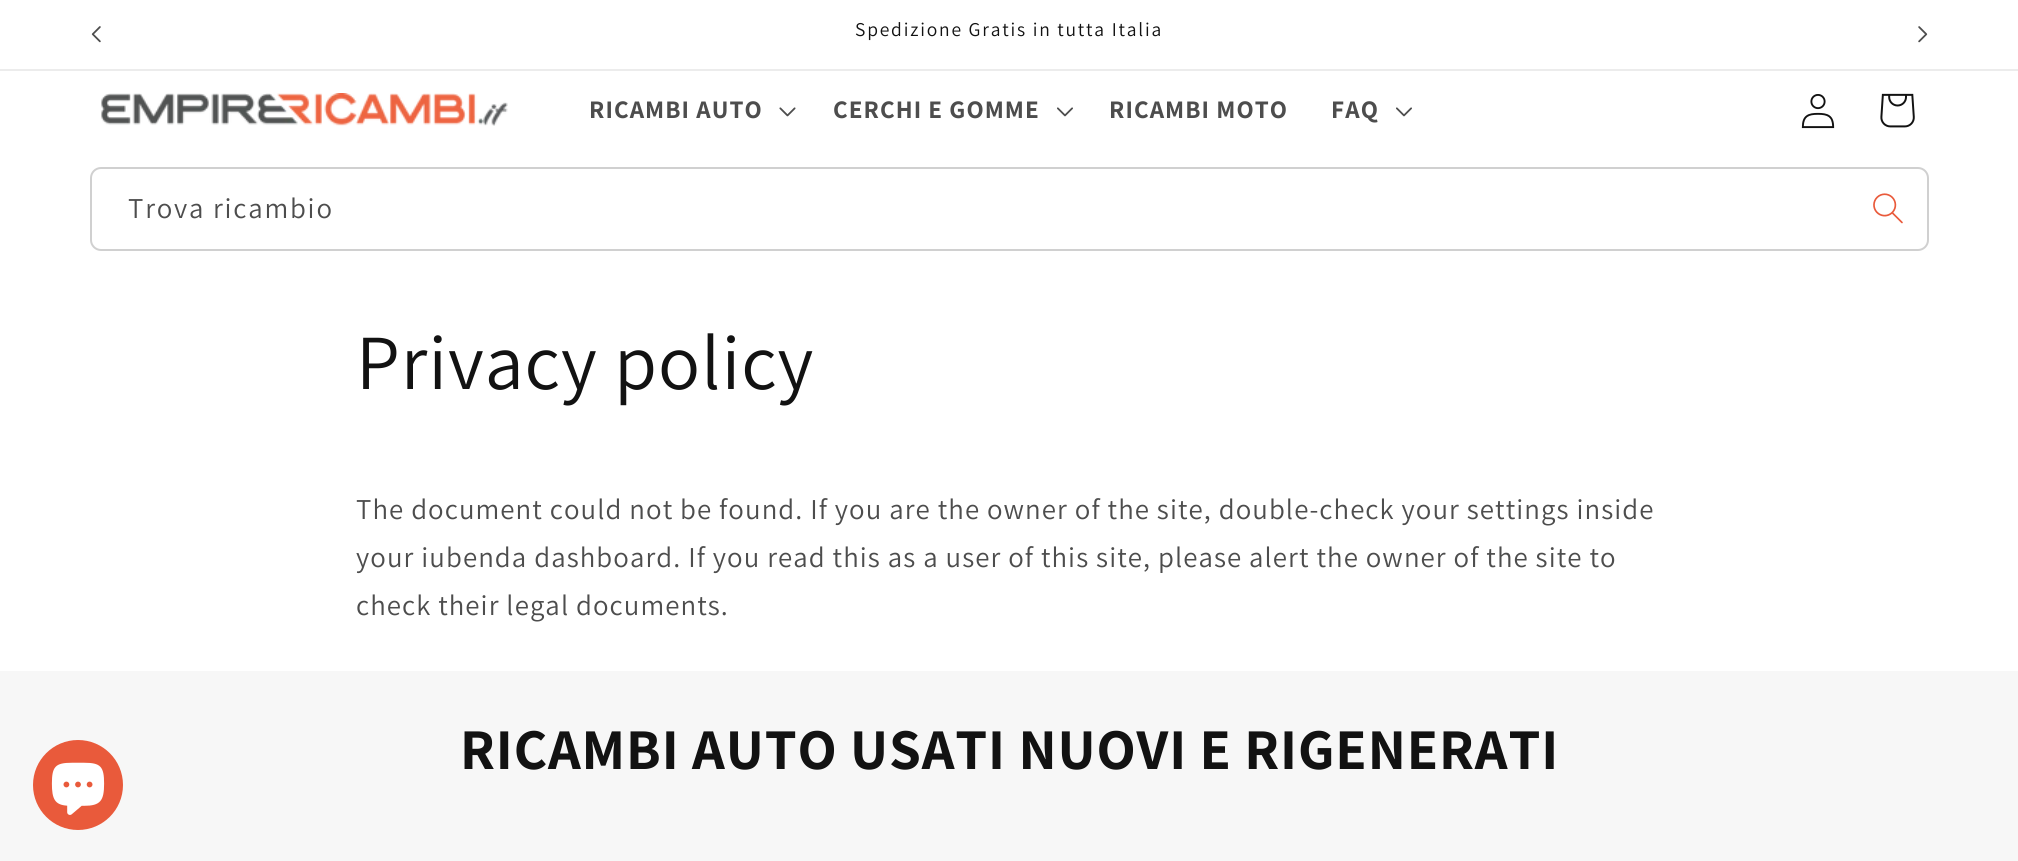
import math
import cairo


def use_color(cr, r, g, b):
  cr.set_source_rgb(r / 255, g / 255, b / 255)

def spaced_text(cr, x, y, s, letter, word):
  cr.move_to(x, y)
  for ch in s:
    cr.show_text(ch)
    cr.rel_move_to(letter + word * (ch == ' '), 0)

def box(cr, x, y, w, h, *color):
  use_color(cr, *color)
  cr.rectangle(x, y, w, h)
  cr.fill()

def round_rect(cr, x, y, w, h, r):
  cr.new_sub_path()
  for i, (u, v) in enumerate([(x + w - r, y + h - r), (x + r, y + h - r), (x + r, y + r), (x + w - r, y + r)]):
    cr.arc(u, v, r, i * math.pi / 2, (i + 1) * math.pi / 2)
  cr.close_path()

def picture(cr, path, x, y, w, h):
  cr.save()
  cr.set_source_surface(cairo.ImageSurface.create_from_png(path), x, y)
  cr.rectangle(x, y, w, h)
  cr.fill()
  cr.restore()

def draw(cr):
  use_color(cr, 255, 255, 255)
  cr.paint()
  box(cr, 0, 69, 2018, 2, 236, 236, 236)
  picture(cr, "img_01.png", 91, 26, 10, 17)
  picture(cr, "img_02.png", 1918, 26, 10, 17)
  picture(cr, "img_03.png", 101, 93, 407, 33)
  picture(cr, "img_04.png", 779, 107, 17, 10)
  picture(cr, "img_05.png", 1057, 107, 16, 10)
  picture(cr, "img_05.png", 1396, 107, 16, 10)
  picture(cr, "img_06.png", 1801, 94, 34, 35)
  picture(cr, "img_07.png", 1880, 93, 35, 35)
  picture(cr, "img_08.png", 1873, 193, 30, 31)
  round_rect(cr, 91, 168, 1837, 82, 10)
  use_color(cr, 208, 208, 208)
  cr.stroke()
  box(cr, 0, 671, 2018, 190, 247, 247, 247)
  use_color(cr, 233, 90, 59)
  cr.arc(78, 785, 45, 0, 2 * math.pi)
  cr.fill()
  picture(cr, "img_09.png", 51, 762, 54, 53)
  cr.select_font_face("Assistant")
  cr.set_font_size(19.5)
  use_color(cr, 18, 18, 18)
  spaced_text(cr, 855, 36, "Spedizione Gratis in tutta Italia", 1.8, 0)
  cr.select_font_face("Assistant", cairo.FONT_SLANT_NORMAL, cairo.FONT_WEIGHT_BOLD)
  cr.set_font_size(25.25)
  use_color(cr, 77, 77, 77)
  spaced_text(cr, 589, 118, "RICAMBI AUTO", 1.08, 0)
  spaced_text(cr, 833, 118, "CERCHI E GOMME", 1.08, 0)
  spaced_text(cr, 1109, 118, "RICAMBI MOTO", 1.08, 0)
  spaced_text(cr, 1331, 118, "FAQ", 1.08, 0)
  cr.select_font_face("Assistant")
  cr.set_font_size(28.8)
  spaced_text(cr, 128, 218, "Trova ricambio", 1.8, 0)
  cr.set_font_size(78)
  use_color(cr, 18, 18, 18)
  spaced_text(cr, 356, 389, "Privacy policy", 0.9, 0)
  cr.set_font_size(28.8)
  use_color(cr, 77, 77, 77)
  spaced_text(cr, 356, 519, "The document could not be found. If you are the owner of the site, double-check your settings inside", 1.08, 0)
  spaced_text(cr, 356, 567, "your iubenda dashboard. If you read this as a user of this site, please alert the owner of the site to", 1.08, 0)
  spaced_text(cr, 356, 615, "check their legal documents.", 1.08, 0)
  cr.select_font_face("Assistant", cairo.FONT_SLANT_NORMAL, cairo.FONT_WEIGHT_BOLD)
  cr.set_font_size(57.6)
  use_color(cr, 18, 18, 18)
  spaced_text(cr, 460, 769, "RICAMBI AUTO USATI NUOVI E RIGENERATI", 0.9, 0)


surface = cairo.ImageSurface(cairo.FORMAT_RGB24, 2018, 861)
cr = cairo.Context(surface)
options = cairo.FontOptions()
options.set_hint_metrics(cairo.HINT_METRICS_OFF)
options.set_hint_style(cairo.HINT_STYLE_NONE)
cr.set_font_options(options)
cr.set_miter_limit(4)
draw(cr)
surface.write_to_png("out.png")
